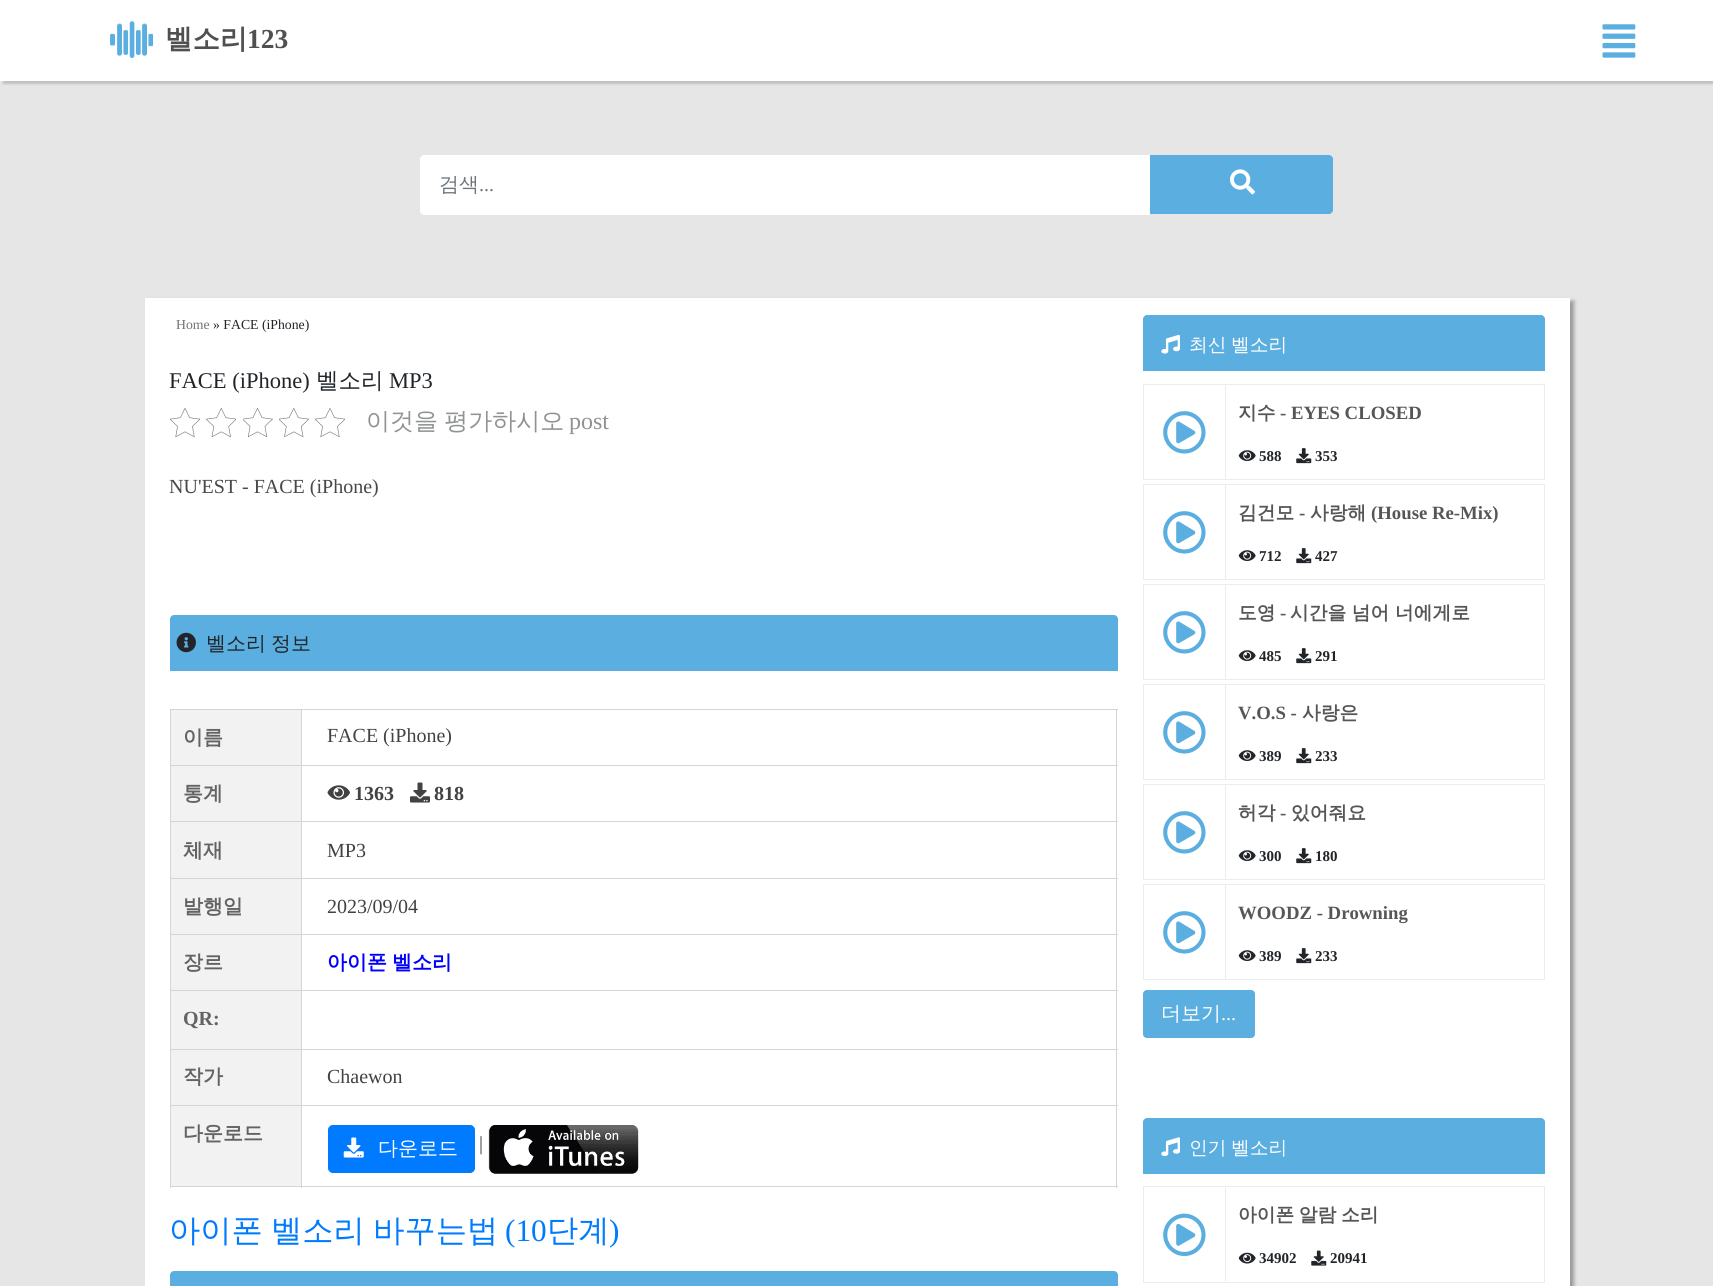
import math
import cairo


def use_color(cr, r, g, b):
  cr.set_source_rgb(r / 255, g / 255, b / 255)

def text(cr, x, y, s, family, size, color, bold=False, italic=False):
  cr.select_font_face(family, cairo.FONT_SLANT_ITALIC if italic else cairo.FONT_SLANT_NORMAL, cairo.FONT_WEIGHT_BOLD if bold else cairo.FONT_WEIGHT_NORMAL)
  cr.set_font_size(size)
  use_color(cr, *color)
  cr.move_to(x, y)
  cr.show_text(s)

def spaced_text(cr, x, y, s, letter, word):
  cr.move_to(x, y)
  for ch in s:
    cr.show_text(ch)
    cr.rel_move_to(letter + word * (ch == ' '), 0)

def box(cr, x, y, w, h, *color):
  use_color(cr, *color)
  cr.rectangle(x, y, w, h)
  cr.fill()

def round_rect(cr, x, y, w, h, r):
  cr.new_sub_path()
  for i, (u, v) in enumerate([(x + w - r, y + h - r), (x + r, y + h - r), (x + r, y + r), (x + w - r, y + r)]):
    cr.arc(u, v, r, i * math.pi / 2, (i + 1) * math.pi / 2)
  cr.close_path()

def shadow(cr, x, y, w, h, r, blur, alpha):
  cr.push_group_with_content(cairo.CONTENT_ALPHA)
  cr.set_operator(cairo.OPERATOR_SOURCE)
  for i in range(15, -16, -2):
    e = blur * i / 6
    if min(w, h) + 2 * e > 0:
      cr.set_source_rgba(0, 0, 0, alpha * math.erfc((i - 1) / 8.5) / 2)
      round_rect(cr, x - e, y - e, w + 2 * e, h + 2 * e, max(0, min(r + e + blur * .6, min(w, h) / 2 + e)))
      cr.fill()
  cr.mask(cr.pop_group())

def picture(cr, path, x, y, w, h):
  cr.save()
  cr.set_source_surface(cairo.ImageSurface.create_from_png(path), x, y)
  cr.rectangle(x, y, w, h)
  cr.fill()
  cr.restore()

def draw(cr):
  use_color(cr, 230, 230, 230)
  cr.paint()
  use_color(cr, 193, 193, 193)
  shadow(cr, 3, 3, 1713, 81, 0, 1, 1)
  box(cr, 0, 0, 1713, 81, 255, 255, 255)
  picture(cr, "img_01.png", 110, 21, 44, 37)
  picture(cr, "img_02.png", 1602, 24, 34, 34)
  cr.new_path()
  cr.move_to(424, 155)
  cr.line_to(1150, 155)
  cr.line_to(1150, 215)
  cr.line_to(424, 215)
  cr.curve_to(422, 215, 420, 213, 420, 211)
  cr.line_to(420, 159)
  cr.curve_to(420, 157, 422, 155, 424, 155)
  cr.close_path()
  cr.fill()
  use_color(cr, 90, 174, 224)
  cr.new_path()
  cr.move_to(1150, 155)
  cr.line_to(1329, 155)
  cr.curve_to(1331, 155, 1333, 157, 1333, 159)
  cr.line_to(1333, 210)
  cr.curve_to(1333, 212, 1331, 214, 1329, 214)
  cr.line_to(1150, 214)
  cr.close_path()
  cr.fill()
  picture(cr, "img_03.png", 1230, 169, 25, 26)
  use_color(cr, 153, 153, 153)
  shadow(cr, 149, 301, 1425, 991, 0, 2, 1)
  box(cr, 145, 298, 1425, 988, 255, 255, 255)
  picture(cr, "img_04.png", 170, 408, 30, 30)
  picture(cr, "img_05.png", 206, 408, 30, 30)
  picture(cr, "img_06.png", 243, 408, 30, 30)
  picture(cr, "img_07.png", 279, 408, 30, 30)
  picture(cr, "img_04.png", 315, 408, 30, 30)
  use_color(cr, 90, 174, 224)
  cr.new_path()
  cr.move_to(174, 615)
  cr.line_to(1114, 615)
  cr.curve_to(1116, 615, 1118, 617, 1118, 619)
  cr.line_to(1118, 671)
  cr.line_to(170, 671)
  cr.line_to(170, 619)
  cr.curve_to(170, 617, 172, 615, 174, 615)
  cr.close_path()
  cr.fill()
  picture(cr, "img_08.png", 176, 632, 20, 21)
  box(cr, 171, 710, 130, 55, 242, 242, 242)
  box(cr, 301, 709, 817, 1, 217, 212, 212)
  box(cr, 301, 765, 817, 1, 217, 212, 212)
  box(cr, 171, 766, 130, 112, 242, 242, 242)
  box(cr, 301, 821, 817, 1, 217, 212, 212)
  box(cr, 301, 878, 817, 1, 217, 212, 212)
  box(cr, 301, 934, 817, 1, 217, 212, 212)
  box(cr, 301, 990, 817, 1, 217, 212, 212)
  box(cr, 301, 1049, 817, 1, 217, 212, 212)
  box(cr, 301, 1105, 817, 1, 217, 212, 212)
  box(cr, 1116, 1105, 1, 83, 217, 212, 212)
  box(cr, 301, 1186, 817, 1, 217, 212, 212)
  box(cr, 301, 1105, 1, 83, 217, 212, 212)
  box(cr, 170, 1105, 133, 1, 217, 212, 212)
  box(cr, 301, 1049, 1, 57, 217, 212, 212)
  box(cr, 170, 1049, 133, 1, 217, 212, 212)
  box(cr, 301, 990, 1, 60, 217, 212, 212)
  box(cr, 170, 990, 133, 1, 217, 212, 212)
  box(cr, 301, 934, 1, 57, 217, 212, 212)
  box(cr, 170, 934, 133, 1, 217, 212, 212)
  box(cr, 301, 878, 1, 57, 217, 212, 212)
  box(cr, 170, 878, 133, 1, 217, 212, 212)
  box(cr, 301, 821, 1, 58, 217, 212, 212)
  box(cr, 170, 821, 133, 1, 217, 212, 212)
  box(cr, 301, 765, 1, 58, 217, 212, 212)
  box(cr, 170, 765, 133, 1, 217, 212, 212)
  box(cr, 301, 709, 1, 57, 217, 212, 212)
  box(cr, 170, 709, 133, 1, 217, 212, 212)
  box(cr, 170, 1186, 133, 1, 217, 212, 212)
  box(cr, 170, 1105, 1, 83, 217, 212, 212)
  box(cr, 170, 1049, 1, 57, 217, 212, 212)
  box(cr, 170, 990, 1, 60, 217, 212, 212)
  box(cr, 170, 934, 1, 57, 217, 212, 212)
  box(cr, 170, 878, 1, 57, 217, 212, 212)
  box(cr, 170, 821, 1, 58, 217, 212, 212)
  box(cr, 170, 765, 1, 58, 217, 212, 212)
  box(cr, 170, 709, 1, 57, 217, 212, 212)
  box(cr, 1116, 1049, 1, 57, 217, 212, 212)
  box(cr, 1116, 990, 1, 60, 217, 212, 212)
  box(cr, 1116, 934, 1, 57, 217, 212, 212)
  box(cr, 1116, 878, 1, 57, 217, 212, 212)
  box(cr, 1116, 821, 1, 58, 217, 212, 212)
  box(cr, 1116, 765, 1, 58, 217, 212, 212)
  box(cr, 1116, 709, 1, 57, 217, 212, 212)
  picture(cr, "img_09.png", 327, 785, 23, 15)
  picture(cr, "img_10.png", 410, 782, 20, 21)
  box(cr, 171, 879, 130, 55, 242, 242, 242)
  box(cr, 171, 935, 130, 55, 242, 242, 242)
  box(cr, 171, 991, 130, 58, 242, 242, 242)
  box(cr, 171, 1050, 130, 55, 242, 242, 242)
  box(cr, 171, 1106, 130, 80, 242, 242, 242)
  use_color(cr, 0, 123, 255)
  round_rect(cr, 328.5, 1125.5, 146, 47, 4.5)
  cr.fill_preserve()
  cr.set_line_width(1)
  cr.stroke()
  picture(cr, "img_11.png", 343, 1137, 21, 21)
  picture(cr, "img_12.png", 488, 1125, 151, 49)
  use_color(cr, 90, 174, 224)
  cr.new_path()
  cr.move_to(174, 1271)
  cr.line_to(1114, 1271)
  cr.curve_to(1116, 1271, 1118, 1273, 1118, 1275)
  cr.line_to(1118, 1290)
  cr.line_to(170, 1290)
  cr.line_to(170, 1275)
  cr.curve_to(170, 1273, 172, 1271, 174, 1271)
  cr.close_path()
  cr.fill()
  cr.new_path()
  cr.move_to(1147, 315)
  cr.line_to(1541, 315)
  cr.curve_to(1543, 315, 1545, 317, 1545, 319)
  cr.line_to(1545, 371)
  cr.line_to(1143, 371)
  cr.line_to(1143, 319)
  cr.curve_to(1143, 317, 1145, 315, 1147, 315)
  cr.close_path()
  cr.fill()
  picture(cr, "img_13.png", 1161, 334, 19, 20)
  cr.rectangle(1143.5, 384.5, 401, 95)
  use_color(cr, 236, 236, 236)
  cr.stroke()
  box(cr, 1225, 385, 1, 94, 236, 236, 236)
  picture(cr, "img_14.png", 1163, 411, 43, 43)
  picture(cr, "img_15.png", 1238, 450, 18, 11)
  picture(cr, "img_16.png", 1296, 448, 16, 16)
  cr.rectangle(1143.5, 484.5, 401, 95)
  cr.stroke()
  box(cr, 1225, 485, 1, 94, 236, 236, 236)
  picture(cr, "img_14.png", 1163, 511, 43, 43)
  picture(cr, "img_15.png", 1238, 550, 18, 11)
  picture(cr, "img_16.png", 1296, 548, 16, 16)
  cr.rectangle(1143.5, 584.5, 401, 95)
  cr.stroke()
  box(cr, 1225, 585, 1, 94, 236, 236, 236)
  picture(cr, "img_14.png", 1163, 611, 43, 43)
  picture(cr, "img_15.png", 1238, 650, 18, 11)
  picture(cr, "img_16.png", 1296, 648, 16, 16)
  cr.rectangle(1143.5, 684.5, 401, 95)
  cr.stroke()
  box(cr, 1225, 685, 1, 94, 236, 236, 236)
  picture(cr, "img_14.png", 1163, 711, 43, 43)
  picture(cr, "img_15.png", 1238, 750, 18, 11)
  picture(cr, "img_16.png", 1296, 748, 16, 16)
  cr.rectangle(1143.5, 784.5, 401, 95)
  cr.stroke()
  box(cr, 1225, 785, 1, 94, 236, 236, 236)
  picture(cr, "img_14.png", 1163, 811, 43, 43)
  picture(cr, "img_15.png", 1238, 850, 18, 11)
  picture(cr, "img_16.png", 1296, 848, 16, 16)
  cr.rectangle(1143.5, 884.5, 401, 95)
  cr.stroke()
  box(cr, 1225, 885, 1, 94, 236, 236, 236)
  picture(cr, "img_14.png", 1163, 911, 43, 43)
  picture(cr, "img_15.png", 1238, 950, 18, 11)
  picture(cr, "img_16.png", 1296, 948, 16, 16)
  use_color(cr, 90, 174, 224)
  round_rect(cr, 1143, 990, 112, 48, 4)
  cr.fill()
  cr.new_path()
  cr.move_to(1147, 1118)
  cr.line_to(1541, 1118)
  cr.curve_to(1543, 1118, 1545, 1120, 1545, 1122)
  cr.line_to(1545, 1174)
  cr.line_to(1143, 1174)
  cr.line_to(1143, 1122)
  cr.curve_to(1143, 1120, 1145, 1118, 1147, 1118)
  cr.close_path()
  cr.fill()
  picture(cr, "img_17.png", 1161, 1137, 19, 20)
  cr.rectangle(1143.5, 1186.5, 401, 96)
  use_color(cr, 236, 236, 236)
  cr.stroke()
  box(cr, 1225, 1188, 1, 93, 236, 236, 236)
  picture(cr, "img_18.png", 1163, 1213, 43, 43)
  picture(cr, "img_19.png", 1238, 1252, 18, 12)
  picture(cr, "img_20.png", 1311, 1250, 16, 16)
  text(cr, 165, 48, "벨소리", "WenQuanYi Zen Hei", 27.5, (80, 80, 80), bold=True)
  text(cr, 247, 48, "123", "Liberation Serif", 27.5, (80, 80, 80), bold=True)
  text(cr, 439, 191, "검색", "WenQuanYi Zen Hei Medium", 20, (108, 117, 125))
  text(cr, 479, 191, "...", "Liberation Serif", 20, (108, 117, 125))
  text(cr, 176, 329, "Home", "Liberation Serif", 13.75, (115, 115, 115))
  text(cr, 213, 329, "» FACE (iPhone)", "Liberation Serif", 13.75, (33, 37, 41))
  text(cr, 169, 388, "FACE (iPhone)", "Liberation Serif", 22.5, (33, 37, 41))
  text(cr, 316, 388, "벨소리", "WenQuanYi Zen Hei Medium", 22.5, (33, 37, 41))
  text(cr, 389, 388, "MP3", "Liberation Serif", 22.5, (33, 37, 41))
  cr.select_font_face("WenQuanYi Zen Hei Medium")
  cr.set_font_size(24)
  use_color(cr, 144, 146, 148)
  spaced_text(cr, 366, 429, "이것을 평가하시오", 0, -1)
  text(cr, 569, 429, "post", "Liberation Serif", 24, (144, 146, 148))
  text(cr, 169, 493, "NU'EST - FACE (iPhone)", "Liberation Serif", 20, (72, 72, 72))
  cr.select_font_face("WenQuanYi Zen Hei Medium")
  use_color(cr, 33, 37, 41)
  spaced_text(cr, 206, 650, "벨소리 정보", 0, -1)
  text(cr, 183, 744, "이름", "WenQuanYi Zen Hei", 20, (99, 99, 99), bold=True)
  text(cr, 327, 742, "FACE (iPhone)", "Liberation Serif", 20, (66, 66, 66))
  text(cr, 183, 800, "통계", "WenQuanYi Zen Hei", 20, (99, 99, 99), bold=True)
  text(cr, 354, 800, "1363", "Liberation Serif", 20, (66, 66, 66), bold=True)
  text(cr, 434, 800, "818", "Liberation Serif", 20, (66, 66, 66), bold=True)
  text(cr, 183, 857, "체재", "WenQuanYi Zen Hei", 20, (99, 99, 99), bold=True)
  text(cr, 327, 857, "MP3", "Liberation Serif", 20, (66, 66, 66))
  text(cr, 183, 913, "발행일", "WenQuanYi Zen Hei", 20, (99, 99, 99), bold=True)
  text(cr, 327, 913, "2023/09/04", "Liberation Serif", 20, (66, 66, 66))
  text(cr, 183, 969, "장르", "WenQuanYi Zen Hei", 20, (99, 99, 99), bold=True)
  use_color(cr, 0, 0, 255)
  spaced_text(cr, 327, 969, "아이폰 벨소리", 0, -1)
  text(cr, 183, 1025, "QR:", "Liberation Serif", 20, (99, 99, 99), bold=True)
  text(cr, 183, 1083, "작가", "WenQuanYi Zen Hei", 20, (99, 99, 99), bold=True)
  text(cr, 327, 1083, "Chaewon", "Liberation Serif", 20, (66, 66, 66))
  text(cr, 183, 1140, "다운로드", "WenQuanYi Zen Hei", 20, (99, 99, 99), bold=True)
  text(cr, 378, 1155, "다운로드", "WenQuanYi Zen Hei Medium", 20, (255, 255, 255))
  text(cr, 479, 1150, "|", "Liberation Serif", 20, (66, 66, 66))
  cr.select_font_face("WenQuanYi Zen Hei Medium")
  cr.set_font_size(31.25)
  use_color(cr, 0, 123, 255)
  spaced_text(cr, 169, 1241, "아이폰 벨소리 바꾸는법", 0, -1)
  text(cr, 505, 1241, "(10", "Liberation Serif", 31.25, (0, 123, 255))
  text(cr, 547, 1241, "단계", "WenQuanYi Zen Hei Medium", 31.25, (0, 123, 255))
  text(cr, 609, 1241, ")", "Liberation Serif", 31.25, (0, 123, 255))
  cr.select_font_face("WenQuanYi Zen Hei Medium")
  cr.set_font_size(18.75)
  use_color(cr, 255, 255, 255)
  spaced_text(cr, 1189, 351, "최신 벨소리", 0, -1)
  text(cr, 1238, 419, "지수", "WenQuanYi Zen Hei", 18.75, (86, 86, 86), bold=True)
  text(cr, 1280, 419, "- EYES CLOSED", "Liberation Serif", 18.75, (86, 86, 86), bold=True)
  text(cr, 1259, 461, "588", "Liberation Serif", 15, (33, 37, 41), bold=True)
  text(cr, 1315, 461, "353", "Liberation Serif", 15, (33, 37, 41), bold=True)
  text(cr, 1238, 519, "김건모", "WenQuanYi Zen Hei", 18.75, (86, 86, 86), bold=True)
  text(cr, 1299, 519, "-", "Liberation Serif", 18.75, (86, 86, 86), bold=True)
  text(cr, 1310, 519, "사랑해", "WenQuanYi Zen Hei", 18.75, (86, 86, 86), bold=True)
  text(cr, 1371, 519, "(House Re-Mix)", "Liberation Serif", 18.75, (86, 86, 86), bold=True)
  text(cr, 1259, 561, "712", "Liberation Serif", 15, (33, 37, 41), bold=True)
  text(cr, 1315, 561, "427", "Liberation Serif", 15, (33, 37, 41), bold=True)
  text(cr, 1238, 619, "도영", "WenQuanYi Zen Hei", 18.75, (86, 86, 86), bold=True)
  text(cr, 1280, 619, "-", "Liberation Serif", 18.75, (86, 86, 86), bold=True)
  text(cr, 1290, 619, "시간을 넘어 너에게로", "WenQuanYi Zen Hei", 18.75, (86, 86, 86), bold=True)
  text(cr, 1259, 661, "485", "Liberation Serif", 15, (33, 37, 41), bold=True)
  text(cr, 1315, 661, "291", "Liberation Serif", 15, (33, 37, 41), bold=True)
  text(cr, 1238, 719, "V.O.S -", "Liberation Serif", 18.75, (86, 86, 86), bold=True)
  text(cr, 1302, 719, "사랑은", "WenQuanYi Zen Hei", 18.75, (86, 86, 86), bold=True)
  text(cr, 1259, 761, "389", "Liberation Serif", 15, (33, 37, 41), bold=True)
  text(cr, 1315, 761, "233", "Liberation Serif", 15, (33, 37, 41), bold=True)
  text(cr, 1238, 819, "허각", "WenQuanYi Zen Hei", 18.75, (86, 86, 86), bold=True)
  text(cr, 1280, 819, "-", "Liberation Serif", 18.75, (86, 86, 86), bold=True)
  text(cr, 1291, 819, "있어줘요", "WenQuanYi Zen Hei", 18.75, (86, 86, 86), bold=True)
  text(cr, 1259, 861, "300", "Liberation Serif", 15, (33, 37, 41), bold=True)
  text(cr, 1315, 861, "180", "Liberation Serif", 15, (33, 37, 41), bold=True)
  text(cr, 1238, 919, "WOODZ - Drowning", "Liberation Serif", 18.75, (86, 86, 86), bold=True)
  text(cr, 1259, 961, "389", "Liberation Serif", 15, (33, 37, 41), bold=True)
  text(cr, 1315, 961, "233", "Liberation Serif", 15, (33, 37, 41), bold=True)
  text(cr, 1161, 1020, "더보기", "WenQuanYi Zen Hei Medium", 20, (255, 255, 255))
  text(cr, 1221, 1020, "...", "Liberation Serif", 20, (255, 255, 255))
  cr.select_font_face("WenQuanYi Zen Hei Medium")
  cr.set_font_size(18.75)
  spaced_text(cr, 1189, 1154, "인기 벨소리", 0, -1)
  cr.select_font_face("WenQuanYi Zen Hei", cairo.FONT_SLANT_NORMAL, cairo.FONT_WEIGHT_BOLD)
  use_color(cr, 86, 86, 86)
  spaced_text(cr, 1238, 1221, "아이폰 알람 소리", 0, -1)
  text(cr, 1259, 1263, "34902", "Liberation Serif", 15, (33, 37, 41), bold=True)
  text(cr, 1330, 1263, "20941", "Liberation Serif", 15, (33, 37, 41), bold=True)


surface = cairo.ImageSurface(cairo.FORMAT_RGB24, 1713, 1286)
cr = cairo.Context(surface)
options = cairo.FontOptions()
options.set_hint_metrics(cairo.HINT_METRICS_OFF)
options.set_hint_style(cairo.HINT_STYLE_NONE)
cr.set_font_options(options)
cr.set_miter_limit(4)
draw(cr)
surface.write_to_png("out.png")
